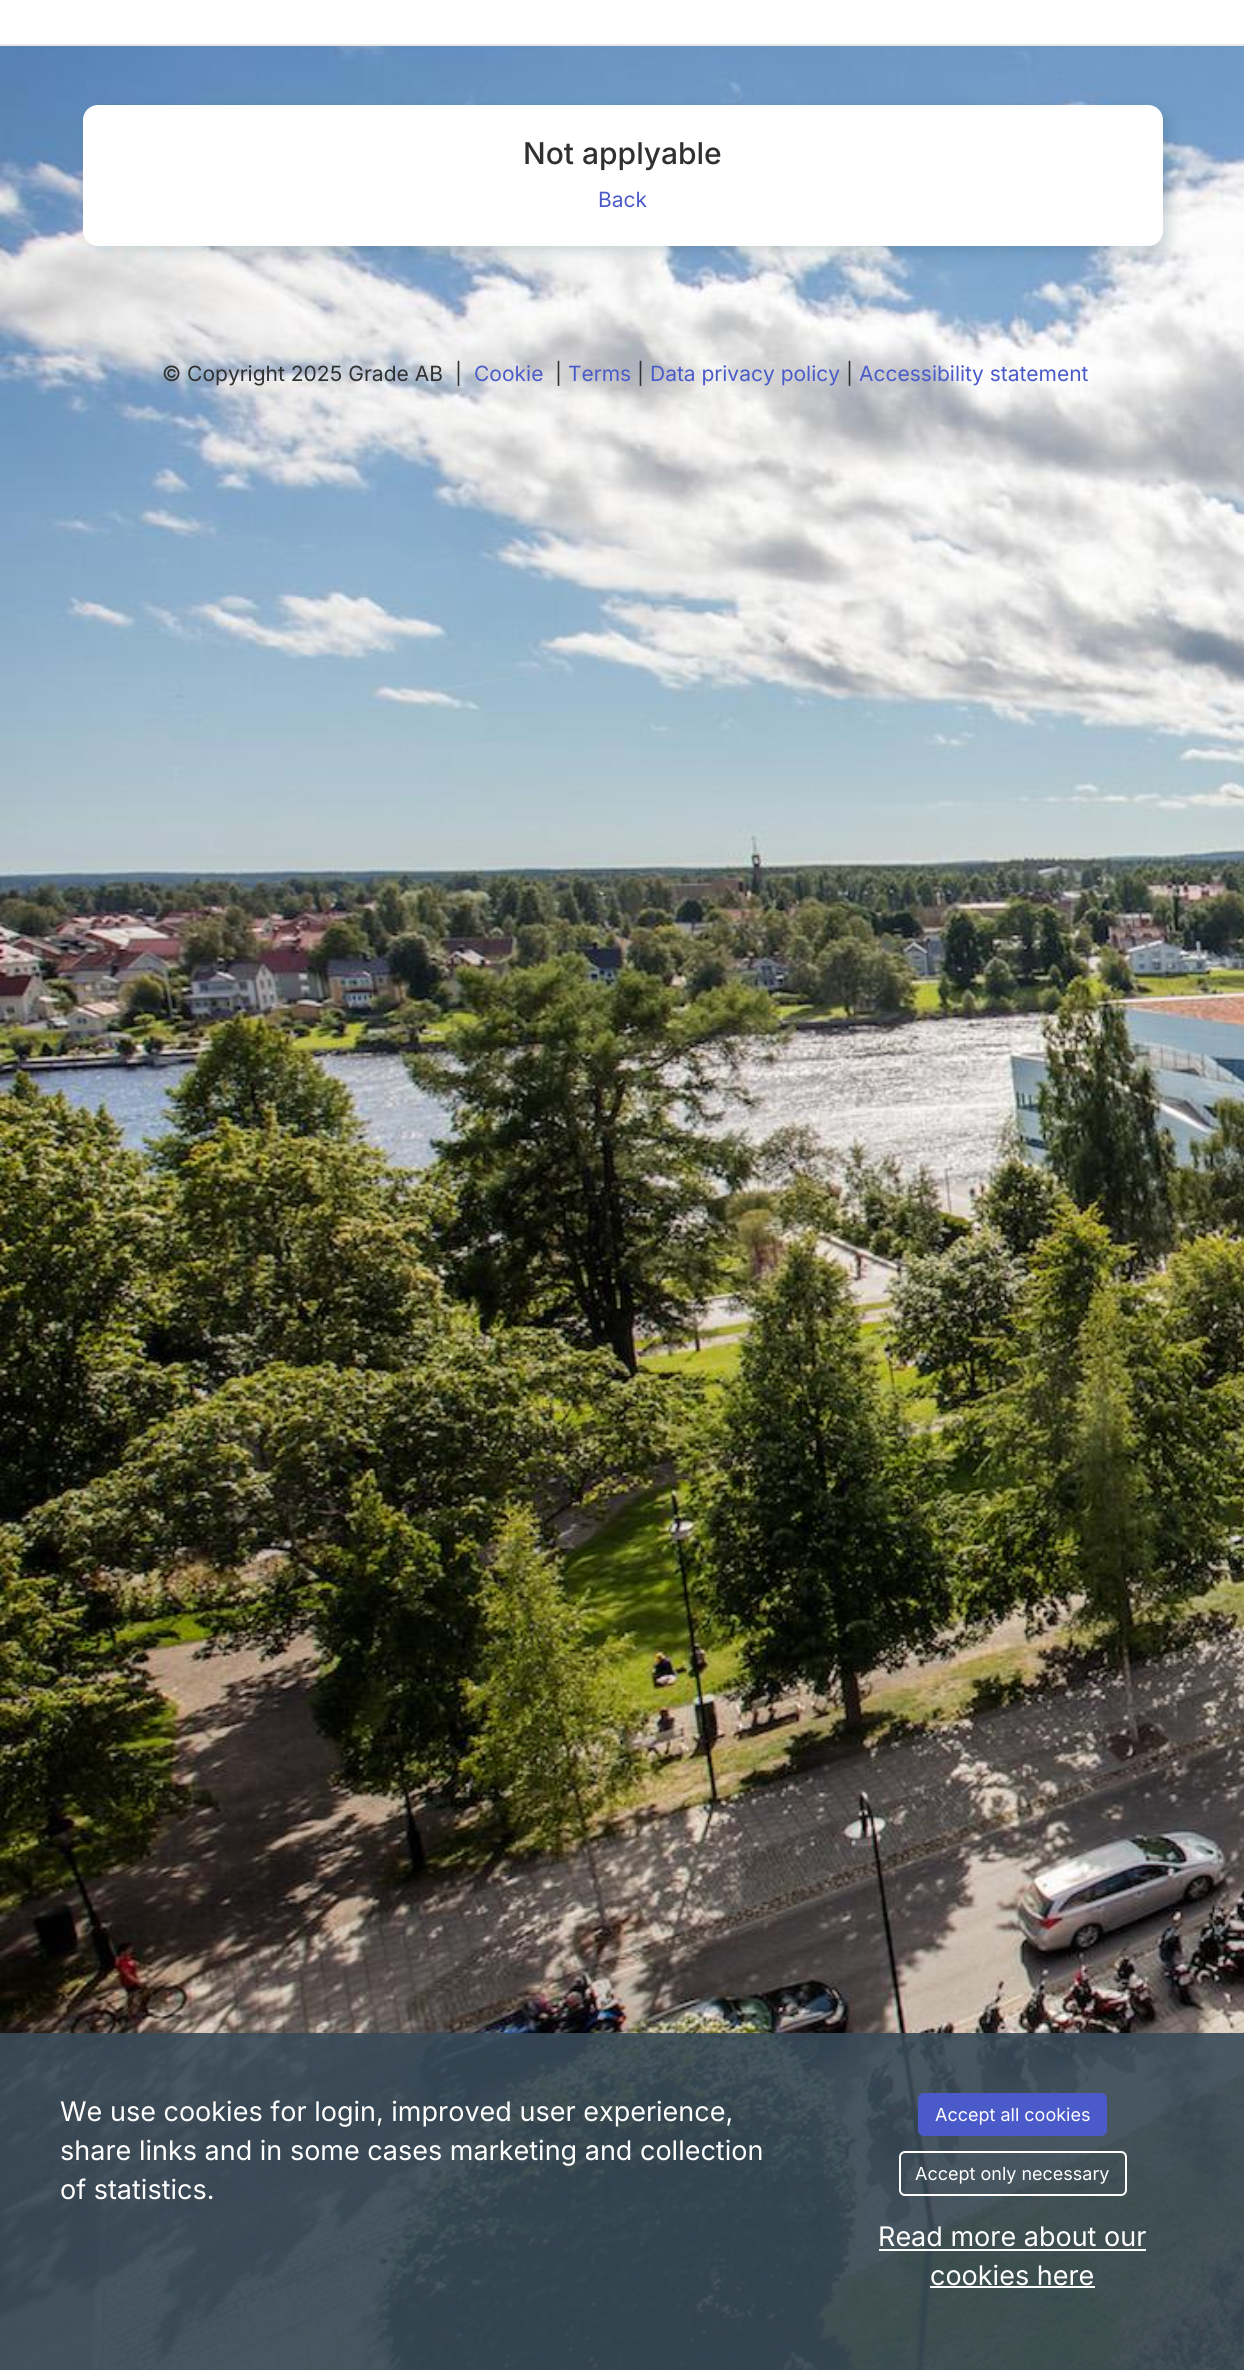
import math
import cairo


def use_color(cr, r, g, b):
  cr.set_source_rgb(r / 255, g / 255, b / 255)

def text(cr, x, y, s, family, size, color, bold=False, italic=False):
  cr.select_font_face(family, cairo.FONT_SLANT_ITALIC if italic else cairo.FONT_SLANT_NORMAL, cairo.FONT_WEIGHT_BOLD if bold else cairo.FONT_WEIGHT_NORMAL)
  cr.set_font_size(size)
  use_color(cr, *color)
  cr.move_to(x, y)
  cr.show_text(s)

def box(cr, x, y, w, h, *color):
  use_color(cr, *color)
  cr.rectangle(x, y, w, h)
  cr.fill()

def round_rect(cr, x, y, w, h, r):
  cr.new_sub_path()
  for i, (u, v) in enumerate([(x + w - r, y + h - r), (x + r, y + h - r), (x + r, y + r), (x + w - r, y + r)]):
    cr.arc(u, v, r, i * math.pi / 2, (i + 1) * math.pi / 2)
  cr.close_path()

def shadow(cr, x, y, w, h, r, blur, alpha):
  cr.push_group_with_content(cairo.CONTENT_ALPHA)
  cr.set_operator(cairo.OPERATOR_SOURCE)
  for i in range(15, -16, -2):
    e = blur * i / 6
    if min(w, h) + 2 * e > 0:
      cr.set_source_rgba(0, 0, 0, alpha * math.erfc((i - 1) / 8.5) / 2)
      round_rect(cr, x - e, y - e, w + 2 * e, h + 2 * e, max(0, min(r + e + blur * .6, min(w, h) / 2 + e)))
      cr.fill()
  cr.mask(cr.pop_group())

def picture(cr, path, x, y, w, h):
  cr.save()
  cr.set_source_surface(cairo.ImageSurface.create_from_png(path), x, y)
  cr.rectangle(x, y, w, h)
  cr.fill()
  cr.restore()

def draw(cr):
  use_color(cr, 255, 255, 255)
  cr.paint()
  box(cr, 0, 44, 1244, 2, 231, 231, 231)
  picture(cr, "img_01.png", 0, 46, 1244, 2324)
  use_color(cr, 11, 62, 74)
  shadow(cr, 89, 110, 1080, 141, 15, 7.5, 0.2)
  use_color(cr, 255, 255, 255)
  round_rect(cr, 83, 105, 1080, 141, 15)
  cr.fill()
  cr.set_source_rgba(0.22, 0.29, 0.341, 0.9)
  cr.rectangle(0, 2033, 1244, 337)
  cr.fill()
  use_color(cr, 74, 91, 201)
  round_rect(cr, 919, 2094, 187, 41, 5)
  cr.fill_preserve()
  cr.stroke()
  round_rect(cr, 900, 2152, 226, 43, 5)
  use_color(cr, 255, 255, 255)
  cr.stroke()
  box(cr, 879, 2249, 267, 2, 255, 255, 255)
  box(cr, 930, 2286, 165, 2, 255, 255, 255)
  text(cr, 523, 164, "Not applyable", "Inter Medium", 30, (47, 48, 48))
  text(cr, 598, 207, "Back", "Inter", 21, (74, 91, 201))
  text(cr, 162, 381, "© Copyright 2025 Grade AB", "Inter", 21, (47, 48, 48))
  text(cr, 455, 381, "|", "Inter", 21, (47, 48, 48))
  text(cr, 474, 381, "Cookie", "Inter", 21, (74, 91, 201))
  text(cr, 555, 381, "|", "Inter", 21, (47, 48, 48))
  text(cr, 568, 381, "Terms", "Inter", 21, (74, 91, 201))
  text(cr, 637, 381, "|", "Inter", 21, (47, 48, 48))
  text(cr, 650, 381, "Data privacy policy", "Inter", 21, (74, 91, 201))
  text(cr, 846, 381, "|", "Inter", 21, (47, 48, 48))
  text(cr, 859, 381, "Accessibility statement", "Inter", 21, (74, 91, 201))
  text(cr, 60, 2121, "We use cookies for login, improved user experience,", "Inter", 27, (255, 255, 255))
  text(cr, 60, 2160, "share links and in some cases marketing and collection", "Inter", 27, (255, 255, 255))
  text(cr, 60, 2199, "of statistics.", "Inter", 27, (255, 255, 255))
  text(cr, 935, 2121, "Accept all cookies", "Inter", 18, (255, 255, 255))
  text(cr, 915, 2180, "Accept only necessary", "Inter", 18, (255, 255, 255))
  text(cr, 878, 2246, "Read more about our", "Inter", 27, (255, 255, 255))
  text(cr, 930, 2285, "cookies here", "Inter", 27, (255, 255, 255))


surface = cairo.ImageSurface(cairo.FORMAT_RGB24, 1244, 2370)
cr = cairo.Context(surface)
options = cairo.FontOptions()
options.set_hint_metrics(cairo.HINT_METRICS_OFF)
options.set_hint_style(cairo.HINT_STYLE_NONE)
cr.set_font_options(options)
cr.set_miter_limit(4)
draw(cr)
surface.write_to_png("out.png")
